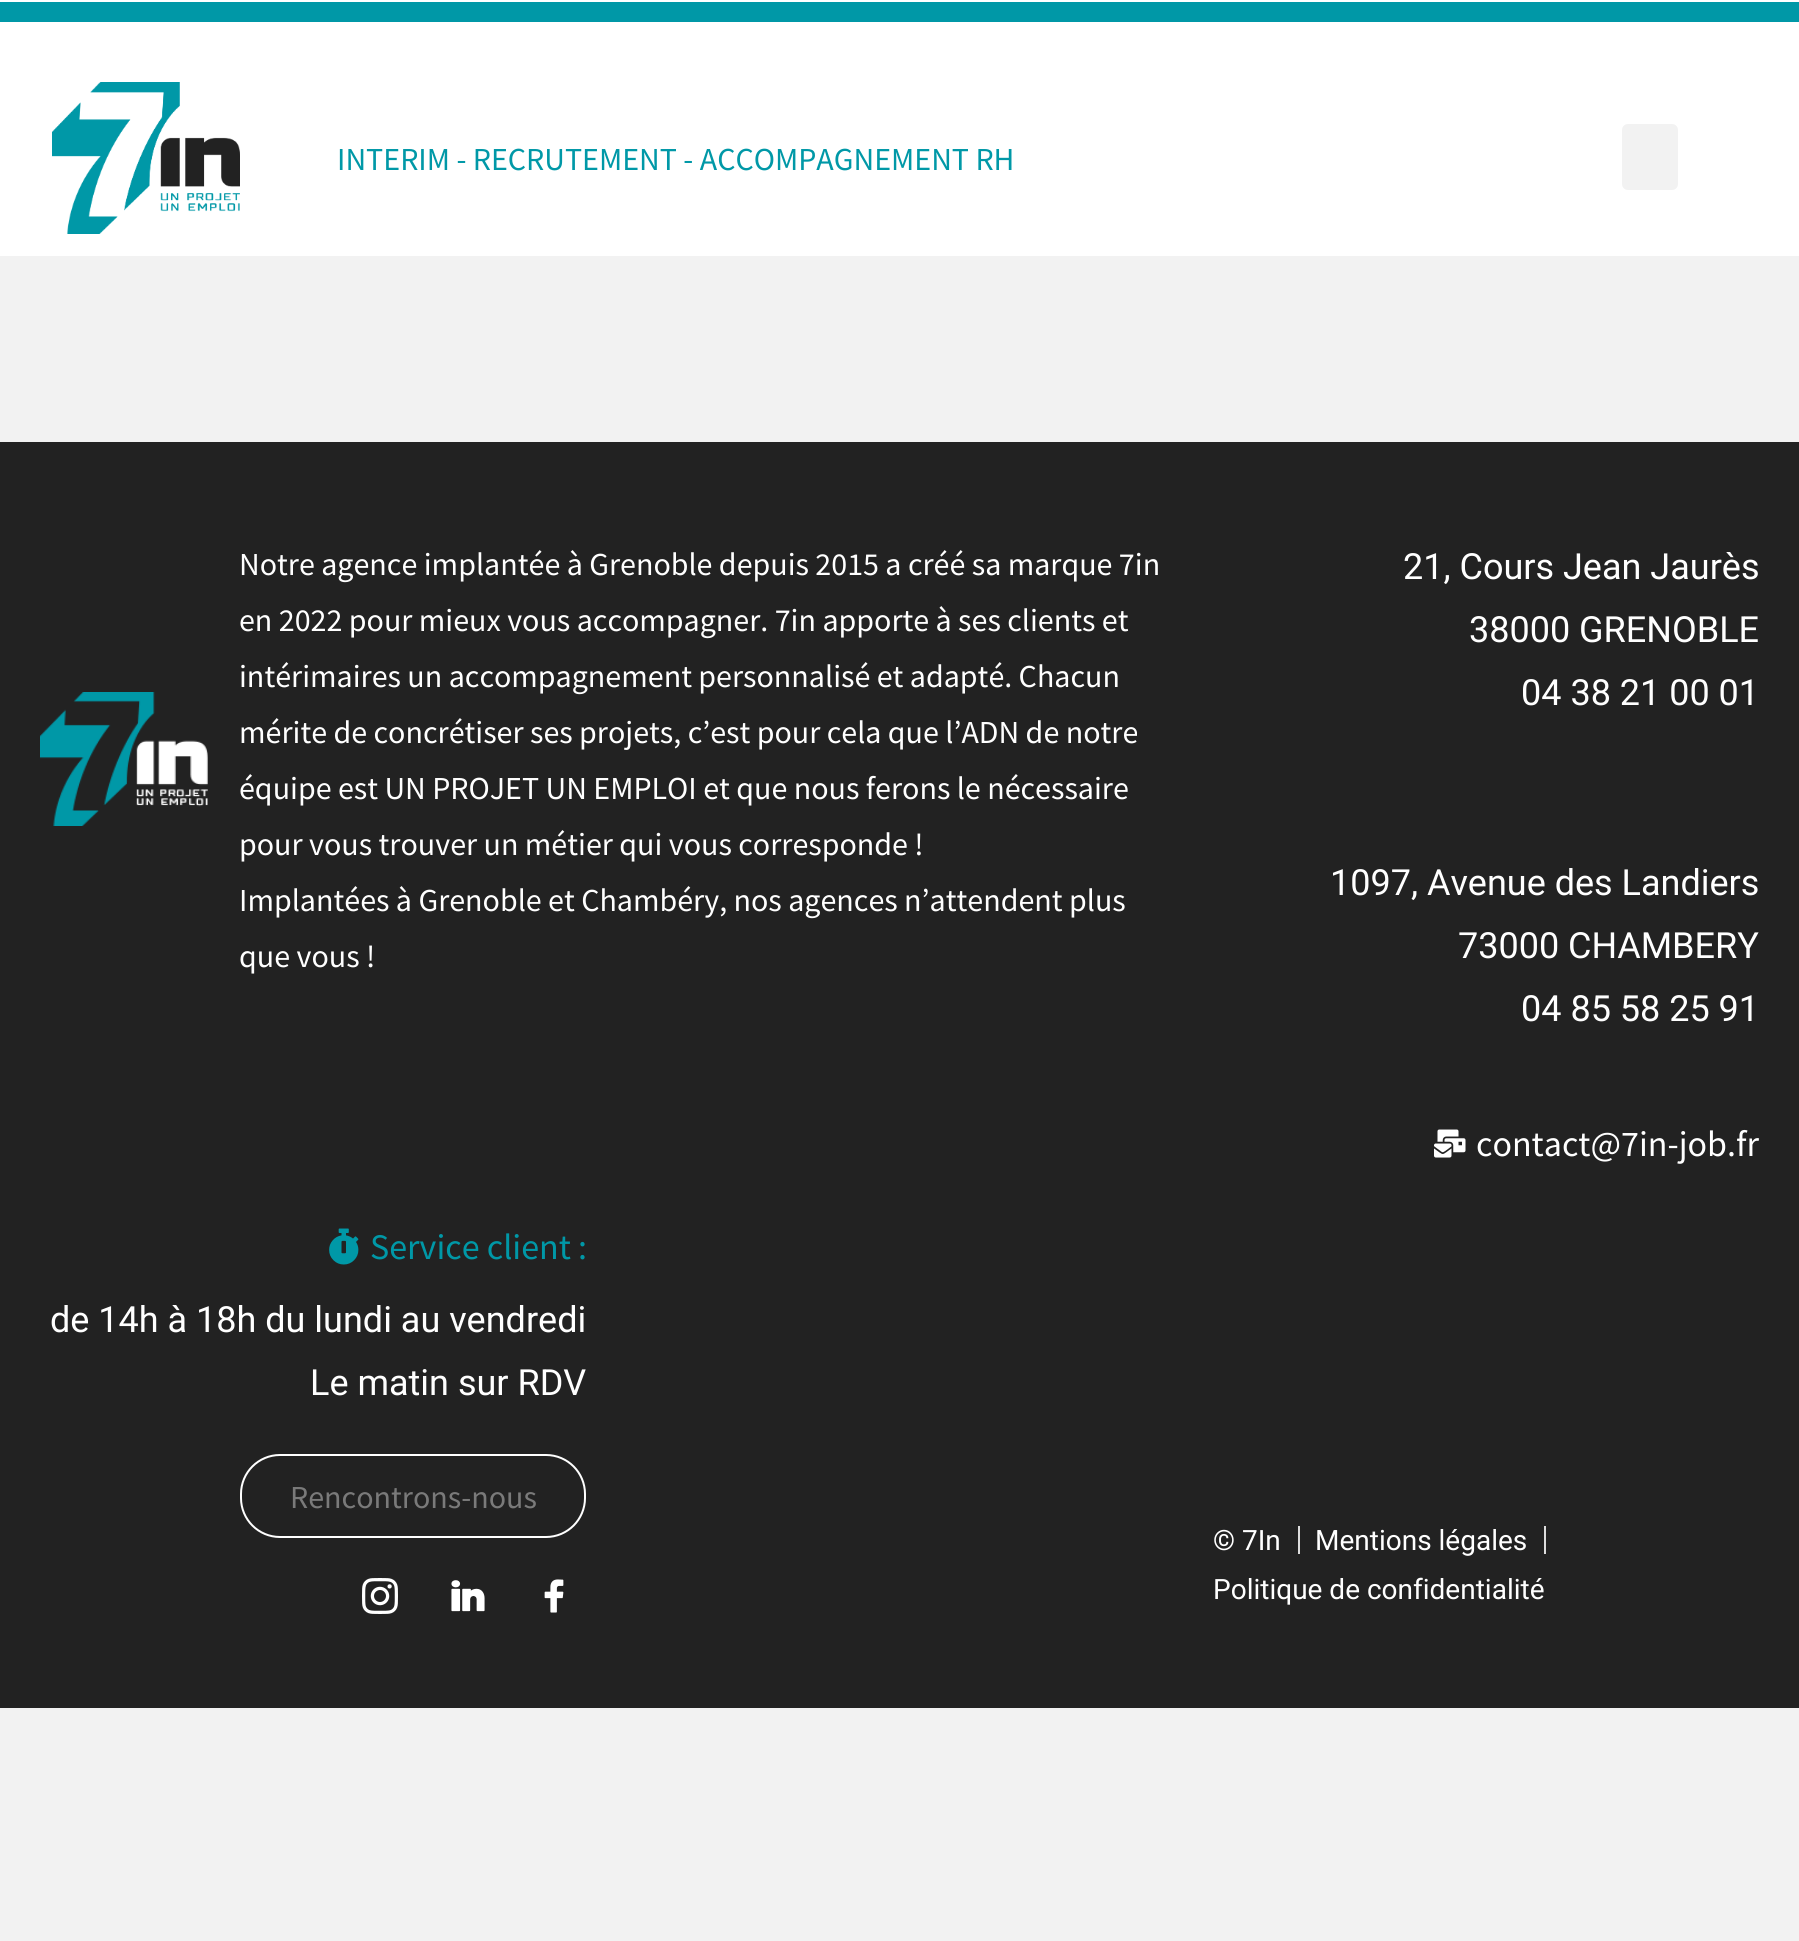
import math
import cairo


def use_color(cr, r, g, b):
  cr.set_source_rgb(r / 255, g / 255, b / 255)

def text(cr, x, y, s, family, size, color, bold=False, italic=False):
  cr.select_font_face(family, cairo.FONT_SLANT_ITALIC if italic else cairo.FONT_SLANT_NORMAL, cairo.FONT_WEIGHT_BOLD if bold else cairo.FONT_WEIGHT_NORMAL)
  cr.set_font_size(size)
  use_color(cr, *color)
  cr.move_to(x, y)
  cr.show_text(s)

def box(cr, x, y, w, h, *color):
  use_color(cr, *color)
  cr.rectangle(x, y, w, h)
  cr.fill()

def round_rect(cr, x, y, w, h, r):
  cr.new_sub_path()
  for i, (u, v) in enumerate([(x + w - r, y + h - r), (x + r, y + h - r), (x + r, y + r), (x + w - r, y + r)]):
    cr.arc(u, v, r, i * math.pi / 2, (i + 1) * math.pi / 2)
  cr.close_path()

def picture(cr, path, x, y, w, h):
  cr.save()
  cr.set_source_surface(cairo.ImageSurface.create_from_png(path), x, y)
  cr.rectangle(x, y, w, h)
  cr.fill()
  cr.restore()

def draw(cr):
  use_color(cr, 242, 242, 242)
  cr.paint()
  box(cr, 0, 0, 1799, 256, 255, 255, 255)
  box(cr, 0, 2, 1799, 20, 0, 152, 167)
  picture(cr, "img_01.png", 52, 82, 188, 152)
  use_color(cr, 242, 242, 242)
  round_rect(cr, 1622, 124, 56, 66, 6)
  cr.fill()
  box(cr, 0, 442, 1799, 1266, 34, 34, 34)
  picture(cr, "img_02.png", 40, 692, 168, 134)
  picture(cr, "img_03.png", 1434, 1129, 32, 29)
  picture(cr, "img_04.png", 329, 1228, 30, 37)
  round_rect(cr, 241, 1455, 344, 82, 39)
  use_color(cr, 255, 255, 255)
  cr.stroke()
  picture(cr, "img_05.png", 362, 1578, 36, 36)
  picture(cr, "img_06.png", 451, 1580, 34, 32)
  picture(cr, "img_07.png", 544, 1579, 20, 34)
  box(cr, 1298, 1526, 2, 28, 221, 221, 221)
  box(cr, 1544, 1526, 2, 28, 221, 221, 221)
  text(cr, 337, 170, "INTERIM - RECRUTEMENT - ACCOMPAGNEMENT RH", "Source Sans Pro", 32, (0, 152, 167))
  text(cr, 239, 575, "Notre agence implantée à Grenoble depuis 2015 a créé sa marque 7in", "Source Sans Pro", 32, (255, 255, 255))
  text(cr, 239, 631, "en 2022 pour mieux vous accompagner. 7in apporte à ses clients et", "Source Sans Pro", 32, (255, 255, 255))
  text(cr, 239, 687, "intérimaires un accompagnement personnalisé et adapté. Chacun", "Source Sans Pro", 32, (255, 255, 255))
  text(cr, 239, 743, "mérite de concrétiser ses projets, c’est pour cela que l’ADN de notre", "Source Sans Pro", 32, (255, 255, 255))
  text(cr, 239, 799, "équipe est UN PROJET UN EMPLOI et que nous ferons le nécessaire", "Source Sans Pro", 32, (255, 255, 255))
  text(cr, 239, 855, "pour vous trouver un métier qui vous corresponde !", "Source Sans Pro", 32, (255, 255, 255))
  text(cr, 239, 911, "Implantées à Grenoble et Chambéry, nos agences n’attendent plus", "Source Sans Pro", 32, (255, 255, 255))
  text(cr, 239, 967, "que vous !", "Source Sans Pro", 32, (255, 255, 255))
  text(cr, 1403, 579, "21, Cours Jean Jaurès", "Roboto", 36, (255, 255, 255))
  text(cr, 1469, 642, "38000 GRENOBLE", "Roboto", 36, (255, 255, 255))
  text(cr, 1521, 705, "04 38 21 00 01", "Roboto", 36, (255, 255, 255))
  text(cr, 1330, 895, "1097, Avenue des Landiers", "Roboto", 36, (255, 255, 255))
  text(cr, 1458, 958, "73000 CHAMBERY", "Roboto", 36, (255, 255, 255))
  text(cr, 1521, 1021, "04 85 58 25 91", "Roboto", 36, (255, 255, 255))
  text(cr, 1476, 1156, "contact@7in-job.fr", "Source Sans Pro", 36, (255, 255, 255))
  text(cr, 370, 1259, "Service client :", "Source Sans Pro", 36, (0, 152, 167))
  text(cr, 50, 1332, "de 14h à 18h du lundi au vendredi", "Roboto", 36, (255, 255, 255))
  text(cr, 310, 1395, "Le matin sur RDV", "Roboto", 36, (255, 255, 255))
  text(cr, 290, 1508, "Rencontrons-nous", "Source Sans Pro", 32, (122, 122, 122))
  text(cr, 1213, 1550, "© 7In", "Roboto", 28, (255, 255, 255))
  text(cr, 1315, 1550, "Mentions légales", "Roboto", 28, (255, 255, 255))
  text(cr, 1213, 1599, "Politique de confidentialité", "Roboto", 28, (255, 255, 255))


surface = cairo.ImageSurface(cairo.FORMAT_RGB24, 1799, 1941)
cr = cairo.Context(surface)
options = cairo.FontOptions()
options.set_hint_metrics(cairo.HINT_METRICS_OFF)
options.set_hint_style(cairo.HINT_STYLE_NONE)
cr.set_font_options(options)
cr.set_miter_limit(4)
draw(cr)
surface.write_to_png("out.png")
